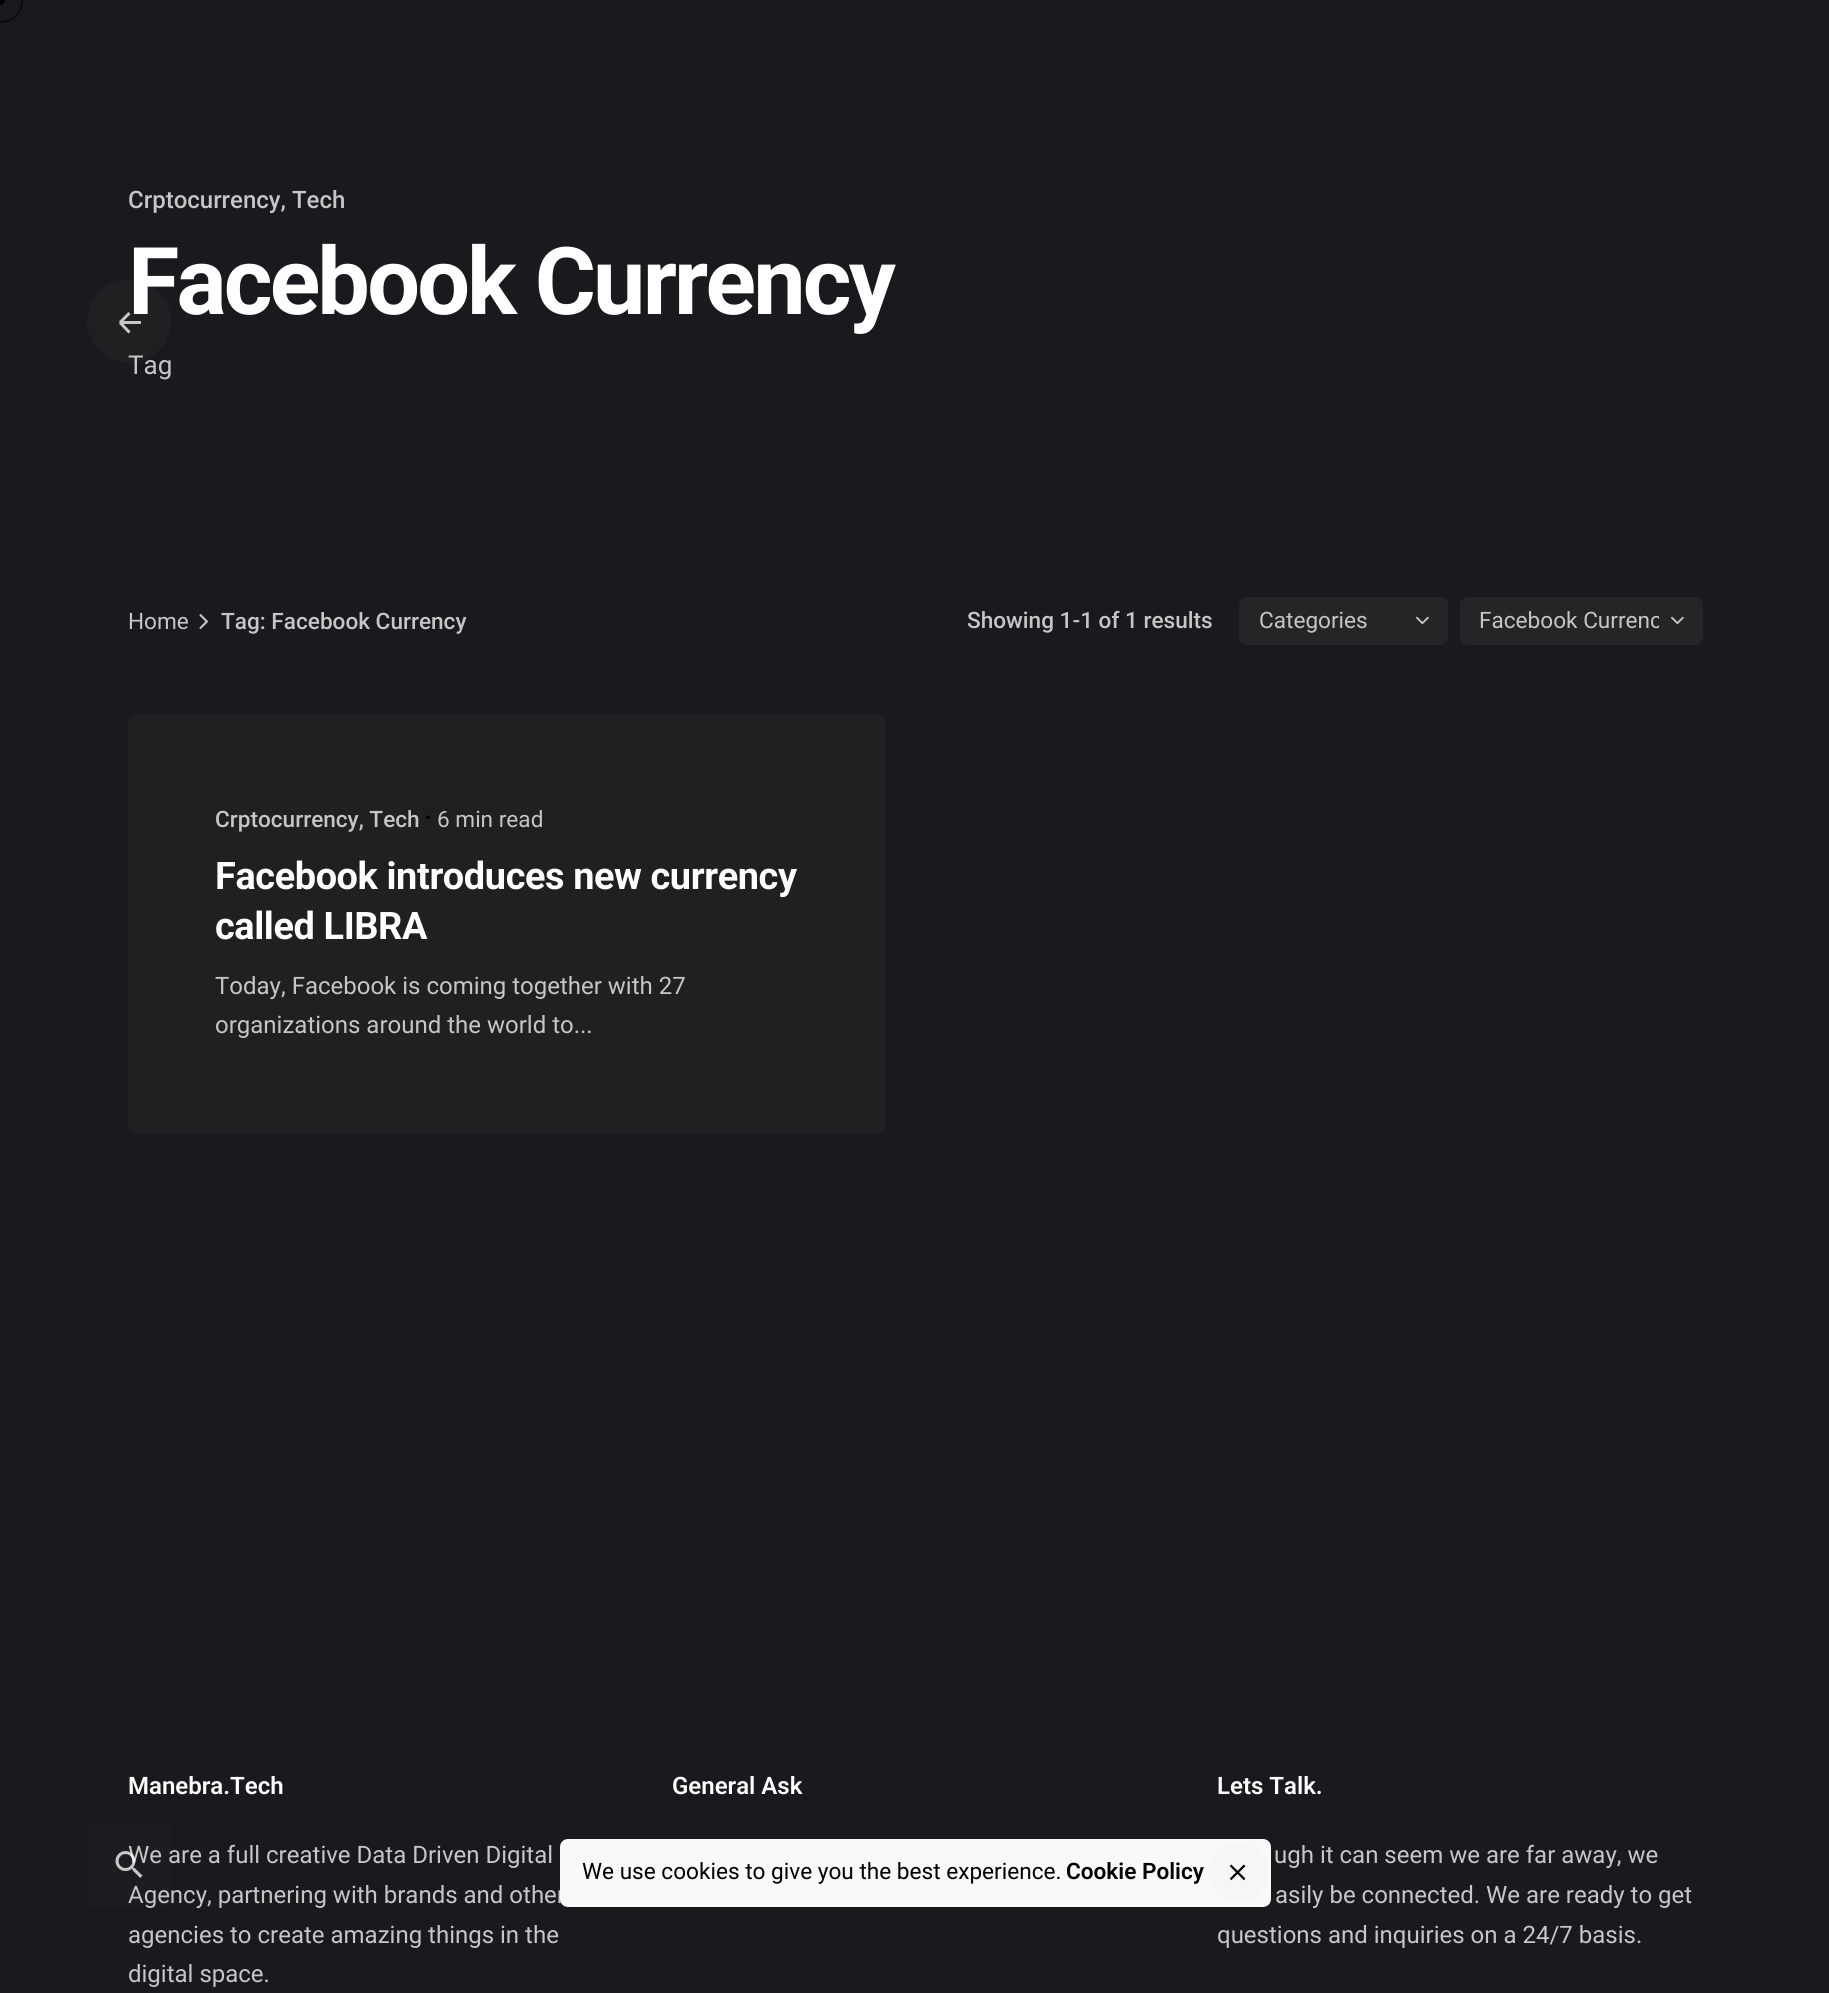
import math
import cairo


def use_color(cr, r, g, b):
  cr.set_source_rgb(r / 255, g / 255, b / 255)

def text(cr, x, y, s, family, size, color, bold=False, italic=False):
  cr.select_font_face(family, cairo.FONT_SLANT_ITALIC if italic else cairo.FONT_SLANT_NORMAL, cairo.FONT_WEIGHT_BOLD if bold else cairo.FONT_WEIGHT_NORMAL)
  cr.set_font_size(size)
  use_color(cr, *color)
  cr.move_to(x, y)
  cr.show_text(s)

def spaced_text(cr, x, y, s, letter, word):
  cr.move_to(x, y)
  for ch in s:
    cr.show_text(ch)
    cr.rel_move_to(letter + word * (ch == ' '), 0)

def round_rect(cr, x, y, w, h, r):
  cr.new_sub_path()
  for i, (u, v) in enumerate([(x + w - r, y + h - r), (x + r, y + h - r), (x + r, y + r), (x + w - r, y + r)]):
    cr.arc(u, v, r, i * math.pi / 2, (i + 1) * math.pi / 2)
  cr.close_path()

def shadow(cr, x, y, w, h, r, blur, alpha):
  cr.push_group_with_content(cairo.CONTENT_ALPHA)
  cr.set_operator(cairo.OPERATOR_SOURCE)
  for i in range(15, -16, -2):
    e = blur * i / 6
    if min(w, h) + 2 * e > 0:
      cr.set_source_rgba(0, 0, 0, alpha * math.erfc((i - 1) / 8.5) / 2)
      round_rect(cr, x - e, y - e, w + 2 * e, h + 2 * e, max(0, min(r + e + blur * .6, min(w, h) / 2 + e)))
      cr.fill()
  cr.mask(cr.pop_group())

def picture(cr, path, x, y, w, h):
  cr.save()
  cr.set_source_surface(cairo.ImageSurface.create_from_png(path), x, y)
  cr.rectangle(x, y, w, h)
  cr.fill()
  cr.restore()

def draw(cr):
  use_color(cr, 26, 25, 29)
  cr.paint()
  cr.arc(0.5, 0.5, 21.5, 0, 2 * math.pi)
  use_color(cr, 13, 13, 15)
  cr.stroke()
  use_color(cr, 0, 0, 0)
  cr.arc(0.5, 0.5, 4.5, 0, 2 * math.pi)
  cr.fill()
  use_color(cr, 32, 31, 34)
  cr.arc(129, 321, 42, 0, 2 * math.pi)
  cr.fill()
  cr.save()
  cr.rectangle(117, 311, 24, 24)
  cr.clip()
  cr.new_path()
  cr.move_to(142.5, 322.5)
  cr.line_to(120, 322.5)
  cr.move_to(120, 322.5)
  cr.line_to(129.5, 332.5)
  cr.move_to(120, 322.5)
  cr.line_to(129.5, 313)
  use_color(cr, 199, 199, 200)
  cr.set_line_width(3)
  cr.set_line_join(cairo.LINE_JOIN_ROUND)
  cr.stroke()
  cr.restore()
  picture(cr, "img_01.png", 199, 614, 9, 15)
  use_color(cr, 37, 37, 40)
  round_rect(cr, 1239, 597, 209, 48, 8)
  cr.fill()
  picture(cr, "img_02.png", 1416, 616, 13, 9)
  round_rect(cr, 1460, 597, 243, 48, 8)
  cr.fill()
  picture(cr, "img_02.png", 1671, 616, 13, 9)
  use_color(cr, 32, 31, 34)
  round_rect(cr, 128, 714, 757, 420, 8)
  cr.fill()
  cr.set_source_rgba(0.533, 0.533, 0.533, 0.03)
  cr.rectangle(87, 1823, 84, 84)
  cr.fill()
  use_color(cr, 0, 0, 0)
  shadow(cr, 560, 1842, 711, 68, 8, 3, 0.07)
  text(cr, 128, 208, "Crptocurrency, Tech", "Roboto Medium", 24, (198, 198, 199))
  cr.select_font_face("Roboto", cairo.FONT_SLANT_NORMAL, cairo.FONT_WEIGHT_BOLD)
  cr.set_font_size(93.5)
  use_color(cr, 255, 255, 255)
  spaced_text(cr, 128, 314, "Facebook Currency", -2.8, 0)
  text(cr, 128, 374, "Tag", "Roboto", 26, (198, 198, 199))
  text(cr, 128, 629, "Home", "Roboto", 22.6, (198, 198, 199))
  text(cr, 221, 629, "Tag: Facebook Currency", "Roboto Medium", 22.6, (198, 198, 199))
  text(cr, 967, 628, "Showing 1-1 of 1 results", "Roboto Medium", 22.6, (198, 198, 199))
  text(cr, 1259, 628, "Categories", "Roboto", 22.6, (198, 198, 199))
  cr.save()
  cr.rectangle(1479, 608, 180, 28)
  cr.clip()
  text(cr, 1479, 628, "Facebook Currenc", "Roboto", 22.6, (198, 198, 199))
  cr.restore()
  text(cr, 215, 827, "Crptocurrency, Tech", "Roboto Medium", 22.6, (198, 198, 199))
  text(cr, 425, 824, "•", "Roboto", 18, (0, 0, 0))
  text(cr, 437, 827, "6 min read", "Roboto", 22.6, (198, 198, 199))
  cr.select_font_face("Roboto", cairo.FONT_SLANT_NORMAL, cairo.FONT_WEIGHT_BOLD)
  cr.set_font_size(37.9)
  use_color(cr, 255, 255, 255)
  spaced_text(cr, 215, 889, "Facebook introduces new currency", -0.4, 0)
  spaced_text(cr, 215, 939, "called LIBRA", -0.4, 0)
  text(cr, 215, 994, "Today, Facebook is coming together with 27", "Roboto", 24, (198, 198, 199))
  text(cr, 215, 1033, "organizations around the world to...", "Roboto", 24, (198, 198, 199))
  text(cr, 128, 1794, "Manebra.Tech", "Roboto SemiBold", 24, (255, 255, 255))
  text(cr, 128, 1863, "We are a full creative Data Driven Digital", "Roboto", 24, (198, 198, 199))
  text(cr, 128, 1903, "Agency, partnering with brands and other", "Roboto", 24, (198, 198, 199))
  text(cr, 128, 1943, "agencies to create amazing things in the", "Roboto", 24, (198, 198, 199))
  text(cr, 128, 1982, "digital space.", "Roboto", 24, (198, 198, 199))
  text(cr, 672, 1794, "General Ask", "Roboto SemiBold", 24, (255, 255, 255))
  text(cr, 1217, 1794, "Lets Talk.", "Roboto SemiBold", 24, (255, 255, 255))
  text(cr, 1274, 1863, "ugh it can seem we are far away, we", "Roboto", 24, (198, 198, 199))
  text(cr, 1275, 1903, "asily be connected. We are ready to get", "Roboto", 24, (198, 198, 199))
  text(cr, 1217, 1943, "questions and inquiries on a 24/7 basis.", "Roboto", 24, (198, 198, 199))
  picture(cr, "img_03.png", 115, 1851, 28, 27)
  use_color(cr, 249, 249, 249)
  round_rect(cr, 560, 1839, 711, 68, 8)
  cr.fill()
  text(cr, 582, 1879, "We use cookies to give you the best experience.", "Roboto", 22.6, (0, 0, 0))
  text(cr, 1066, 1879, "Cookie Policy", "Roboto SemiBold", 22.6, (0, 0, 0))
  use_color(cr, 246, 246, 246)
  cr.new_path()
  cr.arc(1238, 1872, 30, 0, 2 * math.pi)
  cr.fill()
  picture(cr, "img_04.png", 1229, 1864, 17, 17)


surface = cairo.ImageSurface(cairo.FORMAT_RGB24, 1829, 1993)
cr = cairo.Context(surface)
options = cairo.FontOptions()
options.set_hint_metrics(cairo.HINT_METRICS_OFF)
options.set_hint_style(cairo.HINT_STYLE_NONE)
cr.set_font_options(options)
cr.set_miter_limit(4)
draw(cr)
surface.write_to_png("out.png")
